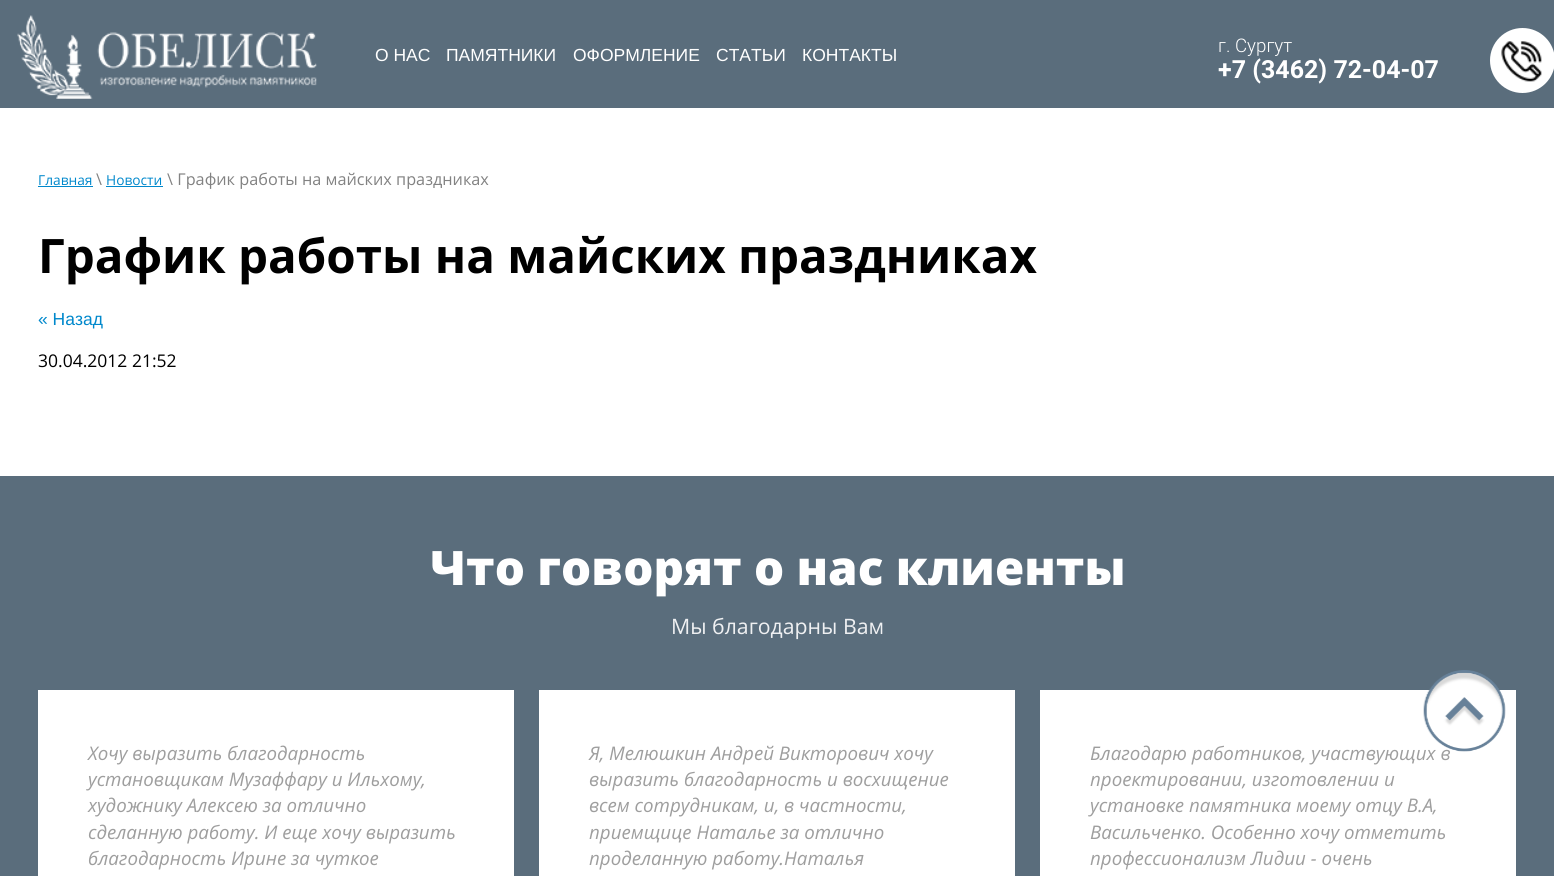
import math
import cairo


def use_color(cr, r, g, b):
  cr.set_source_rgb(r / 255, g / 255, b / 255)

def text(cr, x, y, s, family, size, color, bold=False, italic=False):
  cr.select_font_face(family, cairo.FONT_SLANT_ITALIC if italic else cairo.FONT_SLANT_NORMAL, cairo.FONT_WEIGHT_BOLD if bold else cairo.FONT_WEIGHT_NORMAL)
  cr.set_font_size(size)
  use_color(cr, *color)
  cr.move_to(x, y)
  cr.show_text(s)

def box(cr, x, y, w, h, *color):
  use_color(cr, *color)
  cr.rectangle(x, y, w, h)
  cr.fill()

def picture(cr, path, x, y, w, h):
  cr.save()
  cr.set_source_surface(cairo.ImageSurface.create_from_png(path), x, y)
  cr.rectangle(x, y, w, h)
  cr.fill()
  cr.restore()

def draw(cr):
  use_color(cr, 255, 255, 255)
  cr.paint()
  box(cr, 0, 0, 1554, 108, 90, 109, 124)
  picture(cr, "img_01.png", 17, 15, 300, 84)
  use_color(cr, 255, 255, 255)
  cr.arc(1522.5, 60.5, 32.5, 0, 2 * math.pi)
  cr.fill()
  picture(cr, "img_02.png", 1501, 41, 41, 41)
  box(cr, 38, 186, 55, 1, 0, 136, 204)
  box(cr, 106, 186, 57, 1, 0, 136, 204)
  box(cr, 0, 476, 1554, 400, 90, 109, 124)
  box(cr, 38, 690, 476, 186, 255, 255, 255)
  box(cr, 539, 690, 476, 186, 255, 255, 255)
  box(cr, 1040, 690, 476, 186, 255, 255, 255)
  text(cr, 375, 61, "О НАС", "Liberation Sans", 17.5, (255, 255, 255))
  text(cr, 446, 61, "ПАМЯТНИКИ", "Liberation Sans", 17.5, (255, 255, 255))
  text(cr, 573, 61, "ОФОРМЛЕНИЕ", "Liberation Sans", 17.5, (255, 255, 255))
  text(cr, 716, 61, "СТАТЬИ", "Liberation Sans", 17.5, (255, 255, 255))
  text(cr, 802, 61, "КОНТАКТЫ", "Liberation Sans", 17.5, (255, 255, 255))
  text(cr, 1218, 52, "г. Сургут", "Roboto Light", 18.75, (255, 255, 255))
  text(cr, 1218, 78, "+7 (3462) 72-04-07", "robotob", 25, (255, 255, 255), bold=True)
  text(cr, 38, 185, "Главная", "Open Sans", 13.75, (0, 136, 204))
  text(cr, 96, 185, "\\", "Open Sans", 16.25, (130, 130, 130))
  text(cr, 106, 185, "Новости", "Open Sans", 13.75, (0, 136, 204))
  text(cr, 167, 185, "\\ График работы на майских праздниках", "Open Sans", 16.25, (130, 130, 130))
  text(cr, 38, 273, "График работы на майских праздниках", "Open Sans", 47.5, (0, 0, 0), bold=True)
  text(cr, 38, 325, "« Назад", "Liberation Sans", 17.5, (0, 136, 204))
  text(cr, 38, 367, "30.04.2012 21:52", "Open Sans", 17.5, (0, 0, 0))
  text(cr, 430, 585, "Что говорят о нас клиенты", "Open Sans ExtraBold", 47.5, (255, 255, 255))
  text(cr, 671, 634, "Мы благодарны Вам", "Open Sans", 21.25, (239, 240, 242))
  text(cr, 88, 760, "Хочу выразить благодарность", "Open Sans", 18.75, (158, 158, 158), italic=True)
  text(cr, 88, 786, "установщикам Музаффару и Ильхому,", "Open Sans", 18.75, (158, 158, 158), italic=True)
  text(cr, 88, 812, "художнику Алексею за отлично", "Open Sans", 18.75, (158, 158, 158), italic=True)
  text(cr, 88, 839, "сделанную работу. И еще хочу выразить", "Open Sans", 18.75, (158, 158, 158), italic=True)
  text(cr, 88, 865, "благодарность Ирине за чуткое", "Open Sans", 18.75, (158, 158, 158), italic=True)
  text(cr, 589, 760, "Я, Мелюшкин Андрей Викторович хочу", "Open Sans", 18.75, (158, 158, 158), italic=True)
  text(cr, 589, 786, "выразить благодарность и восхищение", "Open Sans", 18.75, (158, 158, 158), italic=True)
  text(cr, 589, 812, "всем сотрудникам, и, в частности,", "Open Sans", 18.75, (158, 158, 158), italic=True)
  text(cr, 589, 839, "приемщице Наталье за отлично", "Open Sans", 18.75, (158, 158, 158), italic=True)
  text(cr, 589, 865, "проделанную работу.Наталья", "Open Sans", 18.75, (158, 158, 158), italic=True)
  text(cr, 1090, 760, "Благодарю работников, участвующих в", "Open Sans", 18.75, (158, 158, 158), italic=True)
  text(cr, 1090, 786, "проектировании, изготовлении и", "Open Sans", 18.75, (158, 158, 158), italic=True)
  text(cr, 1090, 812, "установке памятника моему отцу В.А,", "Open Sans", 18.75, (158, 158, 158), italic=True)
  text(cr, 1090, 839, "Васильченко. Особенно хочу отметить", "Open Sans", 18.75, (158, 158, 158), italic=True)
  text(cr, 1090, 865, "профессионализм Лидии - очень", "Open Sans", 18.75, (158, 158, 158), italic=True)
  picture(cr, "img_03.png", 1423, 670, 83, 82)


surface = cairo.ImageSurface(cairo.FORMAT_RGB24, 1554, 876)
cr = cairo.Context(surface)
options = cairo.FontOptions()
options.set_hint_metrics(cairo.HINT_METRICS_OFF)
options.set_hint_style(cairo.HINT_STYLE_NONE)
cr.set_font_options(options)
cr.set_miter_limit(4)
draw(cr)
surface.write_to_png("out.png")
